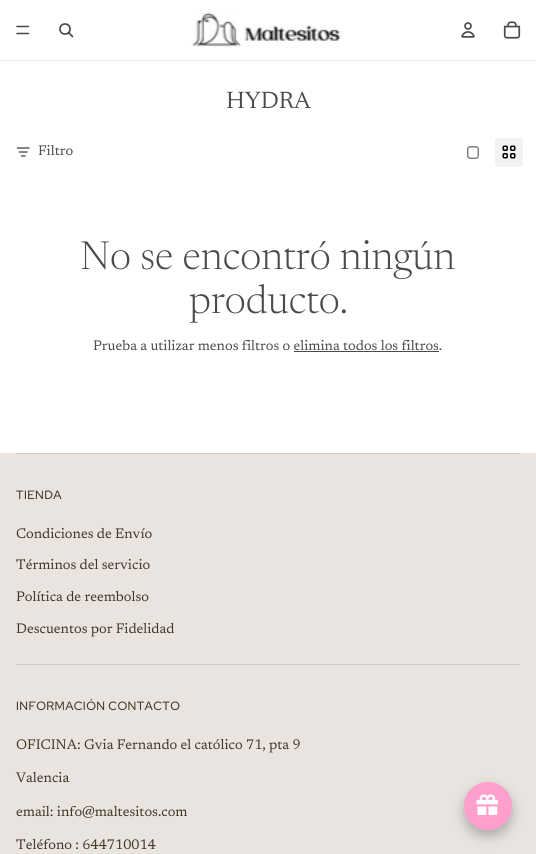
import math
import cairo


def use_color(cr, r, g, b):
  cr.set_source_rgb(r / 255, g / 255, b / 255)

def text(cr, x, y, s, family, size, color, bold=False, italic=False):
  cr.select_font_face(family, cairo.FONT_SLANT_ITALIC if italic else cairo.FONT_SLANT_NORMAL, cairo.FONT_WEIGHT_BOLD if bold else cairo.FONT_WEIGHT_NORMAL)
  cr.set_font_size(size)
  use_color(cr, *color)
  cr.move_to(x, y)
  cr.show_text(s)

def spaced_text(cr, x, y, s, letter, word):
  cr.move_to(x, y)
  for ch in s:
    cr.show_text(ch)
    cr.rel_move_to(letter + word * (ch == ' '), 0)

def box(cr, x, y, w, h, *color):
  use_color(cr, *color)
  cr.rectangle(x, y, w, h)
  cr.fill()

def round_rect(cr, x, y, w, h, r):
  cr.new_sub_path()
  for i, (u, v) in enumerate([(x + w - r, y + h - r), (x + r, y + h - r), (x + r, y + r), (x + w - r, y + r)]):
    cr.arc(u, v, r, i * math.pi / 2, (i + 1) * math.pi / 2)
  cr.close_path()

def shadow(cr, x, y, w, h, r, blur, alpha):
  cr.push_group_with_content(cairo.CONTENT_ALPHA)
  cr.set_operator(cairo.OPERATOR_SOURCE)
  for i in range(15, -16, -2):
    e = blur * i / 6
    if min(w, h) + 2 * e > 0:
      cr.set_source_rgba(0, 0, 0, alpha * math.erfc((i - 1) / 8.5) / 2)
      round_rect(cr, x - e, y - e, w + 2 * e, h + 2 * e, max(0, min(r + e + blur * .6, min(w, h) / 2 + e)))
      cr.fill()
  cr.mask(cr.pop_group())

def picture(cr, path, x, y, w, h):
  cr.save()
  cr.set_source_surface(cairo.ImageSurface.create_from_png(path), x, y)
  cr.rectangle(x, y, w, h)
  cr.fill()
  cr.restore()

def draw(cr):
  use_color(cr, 255, 255, 255)
  cr.paint()
  box(cr, 0, 60, 536, 1, 234, 232, 230)
  cr.new_path()
  cr.move_to(17, 26.5)
  cr.line_to(28.5, 26.5)
  cr.move_to(17, 33.5)
  cr.line_to(28.5, 33.5)
  use_color(cr, 74, 74, 74)
  cr.set_line_width(1.5)
  cr.set_line_cap(cairo.LINE_CAP_ROUND)
  cr.stroke()
  cr.arc(65, 29, 5, 0, 2 * math.pi)
  cr.set_line_width(1.7)
  cr.set_line_cap(cairo.LINE_CAP_BUTT)
  cr.stroke()
  cr.new_path()
  cr.move_to(69, 33)
  cr.line_to(72.5, 36.5)
  cr.set_source_rgba(0, 0, 0, 0.71)
  cr.set_line_cap(cairo.LINE_CAP_ROUND)
  cr.set_line_join(cairo.LINE_JOIN_ROUND)
  cr.stroke()
  picture(cr, "img_01.png", 191, 10, 150, 37)
  picture(cr, "img_02.png", 461, 22, 14, 16)
  picture(cr, "img_03.png", 503, 21, 18, 18)
  cr.new_path()
  cr.move_to(29, 148)
  cr.line_to(17.5, 148)
  cr.move_to(27, 152)
  cr.line_to(19.5, 152)
  cr.move_to(21.5, 156)
  cr.line_to(25, 156)
  use_color(cr, 74, 74, 74)
  cr.set_line_width(1.4)
  cr.set_line_join(cairo.LINE_JOIN_MITER)
  cr.stroke()
  round_rect(cr, 467.75, 146.75, 10.5, 11.5, 2.25)
  use_color(cr, 128, 128, 128)
  cr.set_line_width(1.5)
  cr.set_line_cap(cairo.LINE_CAP_BUTT)
  cr.stroke()
  use_color(cr, 242, 242, 242)
  round_rect(cr, 495, 138, 28, 29, 3)
  cr.fill()
  picture(cr, "img_04.png", 502, 145, 14, 14)
  box(cr, 294, 351, 145, 1, 74, 74, 74)
  box(cr, 0, 453, 536, 401, 233, 228, 224)
  use_color(cr, 208, 202, 196)
  cr.new_path()
  cr.move_to(520, 453)
  cr.line_to(520, 454)
  cr.line_to(519, 453)
  cr.close_path()
  cr.fill()
  cr.set_source_rgba(0.263, 0.212, 0.145, 0.15)
  cr.new_path()
  cr.move_to(520, 454)
  cr.line_to(16, 454)
  cr.line_to(16, 453)
  cr.line_to(519, 453)
  cr.close_path()
  cr.fill()
  use_color(cr, 208, 202, 196)
  cr.new_path()
  cr.move_to(520, 664)
  cr.line_to(520, 665)
  cr.line_to(519, 664)
  cr.close_path()
  cr.fill()
  cr.set_source_rgba(0.263, 0.212, 0.145, 0.15)
  cr.new_path()
  cr.move_to(520, 665)
  cr.line_to(16, 665)
  cr.line_to(16, 664)
  cr.line_to(519, 664)
  cr.close_path()
  cr.fill()
  use_color(cr, 0, 0, 0)
  shadow(cr, 464, 788, 48, 48, 24, 6, 0.25)
  use_color(cr, 255, 159, 203)
  cr.arc(488, 806, 24, 0, 2 * math.pi)
  cr.fill()
  picture(cr, "img_05.png", 476, 794, 22, 21)
  text(cr, 226, 108, "HYDRA", "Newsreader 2", 24, (74, 74, 74))
  text(cr, 38, 155, "Filtro", "Newsreader", 14, (74, 74, 74))
  text(cr, 80, 269, "No se encontró ningún", "Newsreader Light", 40, (74, 74, 74))
  text(cr, 189, 313, "producto.", "Newsreader Light", 40, (74, 74, 74))
  text(cr, 93, 350, "Prueba a utilizar menos filtros o elimina todos los filtros.", "Newsreader", 14, (74, 74, 74))
  cr.select_font_face("Red Hat Display Medium")
  cr.set_font_size(12)
  use_color(cr, 67, 54, 37)
  spaced_text(cr, 16, 499, "TIENDA", 0.4, 0)
  text(cr, 16, 538, "Condiciones de Envío", "Newsreader", 14, (67, 54, 37))
  text(cr, 16, 569, "Términos del servicio", "Newsreader", 14, (67, 54, 37))
  text(cr, 16, 601, "Política de reembolso", "Newsreader", 14, (67, 54, 37))
  text(cr, 16, 633, "Descuentos por Fidelidad", "Newsreader", 14, (67, 54, 37))
  cr.select_font_face("Red Hat Display Medium")
  cr.set_font_size(12)
  spaced_text(cr, 16, 710, "INFORMACIÓN CONTACTO", 0.4, 0)
  text(cr, 16, 749, "OFICINA: Gvia Fernando el católico 71, pta 9", "Newsreader", 14, (67, 54, 37))
  text(cr, 16, 782, "Valencia", "Newsreader", 14, (67, 54, 37))
  text(cr, 16, 816, "email: info@maltesitos.com", "Newsreader", 14, (67, 54, 37))
  text(cr, 16, 849, "Teléfono : 644710014", "Newsreader", 14, (67, 54, 37))


surface = cairo.ImageSurface(cairo.FORMAT_RGB24, 536, 854)
cr = cairo.Context(surface)
options = cairo.FontOptions()
options.set_hint_metrics(cairo.HINT_METRICS_OFF)
options.set_hint_style(cairo.HINT_STYLE_NONE)
cr.set_font_options(options)
cr.set_miter_limit(4)
draw(cr)
surface.write_to_png("out.png")
